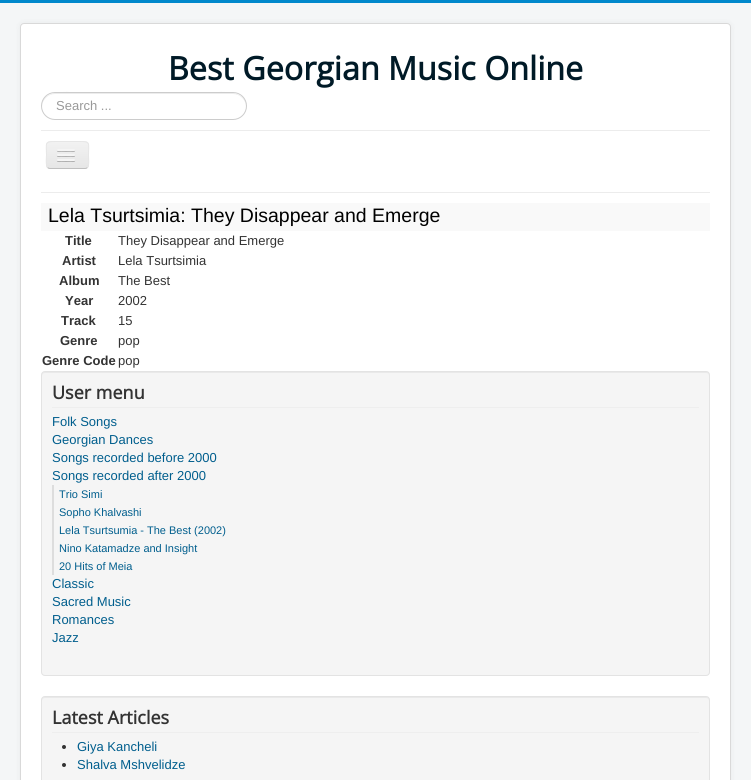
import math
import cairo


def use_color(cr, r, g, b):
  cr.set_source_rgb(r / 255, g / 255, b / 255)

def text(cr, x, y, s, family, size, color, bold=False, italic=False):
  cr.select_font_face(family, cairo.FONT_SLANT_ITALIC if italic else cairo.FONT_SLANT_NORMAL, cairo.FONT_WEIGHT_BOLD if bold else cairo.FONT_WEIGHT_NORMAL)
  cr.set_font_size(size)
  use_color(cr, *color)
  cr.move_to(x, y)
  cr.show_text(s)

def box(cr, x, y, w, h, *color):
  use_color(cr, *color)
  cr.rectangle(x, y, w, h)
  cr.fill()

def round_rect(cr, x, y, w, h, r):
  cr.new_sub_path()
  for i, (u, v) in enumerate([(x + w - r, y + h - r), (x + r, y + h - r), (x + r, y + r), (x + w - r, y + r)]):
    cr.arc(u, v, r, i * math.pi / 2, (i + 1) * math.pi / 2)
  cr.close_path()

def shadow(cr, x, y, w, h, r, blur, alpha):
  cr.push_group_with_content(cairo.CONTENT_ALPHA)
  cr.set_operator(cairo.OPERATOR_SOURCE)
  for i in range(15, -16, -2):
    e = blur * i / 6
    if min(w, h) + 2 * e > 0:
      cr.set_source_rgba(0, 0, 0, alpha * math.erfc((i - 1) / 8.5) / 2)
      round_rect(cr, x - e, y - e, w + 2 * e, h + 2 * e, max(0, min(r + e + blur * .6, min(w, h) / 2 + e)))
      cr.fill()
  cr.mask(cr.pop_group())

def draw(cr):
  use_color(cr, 244, 246, 247)
  cr.paint()
  box(cr, 0, 0, 751, 3, 0, 136, 204)
  use_color(cr, 0, 0, 0)
  shadow(cr, 20, 23, 711, 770, 4, 3, 0.05)
  use_color(cr, 255, 255, 255)
  round_rect(cr, 20, 23, 711, 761, 4)
  cr.fill()
  round_rect(cr, 20.5, 23.5, 710, 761, 3.5)
  cr.set_source_rgba(0, 0, 0, 0.15)
  cr.set_line_width(1)
  cr.stroke()
  use_color(cr, 236, 236, 236)
  cr.new_path()
  cr.move_to(55, 94)
  cr.line_to(233, 94)
  cr.curve_to(240, 94, 246, 100, 246, 107)
  cr.curve_to(247, 86, 211, 93, 203, 93)
  cr.line_to(85, 93)
  cr.curve_to(77, 93, 41, 86, 42, 107)
  cr.curve_to(42, 100, 48, 94, 55, 94)
  cr.close_path()
  cr.fill()
  round_rect(cr, 41.5, 92.5, 205, 27, 13.5)
  use_color(cr, 204, 204, 204)
  cr.stroke()
  box(cr, 41, 130, 669, 1, 236, 236, 236)
  box(cr, 41, 192, 669, 1, 236, 236, 236)
  use_color(cr, 237, 237, 237)
  round_rect(cr, 46, 141, 43, 28, 4)
  cr.fill()
  cr.save()
  round_rect(cr, 46, 141, 43, 28, 4)
  cr.clip()
  gradient = cairo.LinearGradient(68, 142, 68, 168)
  gradient.add_color_stop_rgba(0, 0.949, 0.949, 0.949, 1)
  gradient.add_color_stop_rgba(1, 0.902, 0.902, 0.902, 1)
  cr.set_source(gradient)
  cr.rectangle(46, 142, 43, 26)
  cr.fill()
  cr.restore()
  cr.new_path()
  cr.move_to(87.5, 167.5)
  cr.curve_to(87, 168, 86, 168.5, 85, 168.5)
  cr.line_to(50, 168.5)
  cr.curve_to(49, 168.5, 48, 168, 47.5, 167.5)
  use_color(cr, 191, 191, 191)
  cr.stroke()
  cr.new_path()
  cr.move_to(47.5, 167.5)
  cr.curve_to(45.5, 165, 46.5, 157.5, 46.5, 155)
  cr.curve_to(46.5, 143, 44, 141.5, 56, 141.5)
  cr.line_to(79, 141.5)
  cr.curve_to(91, 141.5, 88.5, 143, 88.5, 155)
  cr.curve_to(88.5, 157.5, 89.5, 165, 87.5, 167.5)
  use_color(cr, 230, 230, 230)
  cr.stroke()
  use_color(cr, 179, 179, 179)
  cr.new_path()
  cr.move_to(57, 150.5)
  cr.curve_to(56, 152.5, 60.5, 152, 60.5, 152)
  cr.line_to(71.5, 152)
  cr.curve_to(71.5, 152, 76, 152.5, 75, 150.5)
  cr.curve_to(74, 151.5, 67.5, 151, 66, 151)
  cr.curve_to(64.5, 151, 58, 151.5, 57, 150.5)
  cr.close_path()
  cr.fill()
  use_color(cr, 245, 245, 245)
  round_rect(cr, 57, 149, 18, 2, 1)
  cr.fill()
  use_color(cr, 176, 176, 176)
  cr.new_path()
  cr.move_to(57, 155.5)
  cr.curve_to(56, 157.5, 60.5, 157, 60.5, 157)
  cr.line_to(71.5, 157)
  cr.curve_to(71.5, 157, 76, 157.5, 75, 155.5)
  cr.curve_to(74, 156.5, 67.5, 156, 66, 156)
  cr.curve_to(64.5, 156, 58, 156.5, 57, 155.5)
  cr.close_path()
  cr.fill()
  use_color(cr, 245, 245, 245)
  round_rect(cr, 57, 154, 18, 2, 1)
  cr.fill()
  use_color(cr, 175, 175, 175)
  cr.new_path()
  cr.move_to(57, 160.5)
  cr.curve_to(56, 162.5, 60.5, 162, 60.5, 162)
  cr.line_to(71.5, 162)
  cr.curve_to(71.5, 162, 76, 162.5, 75, 160.5)
  cr.curve_to(74, 161.5, 67.5, 161, 66, 161)
  cr.curve_to(64.5, 161, 58, 161.5, 57, 160.5)
  cr.close_path()
  cr.fill()
  use_color(cr, 245, 245, 245)
  round_rect(cr, 57, 159, 18, 2, 1)
  cr.fill()
  box(cr, 41, 203, 669, 28, 249, 249, 249)
  use_color(cr, 245, 245, 245)
  round_rect(cr, 41, 371, 669, 305, 4)
  cr.fill()
  use_color(cr, 233, 233, 233)
  cr.new_path()
  cr.move_to(45, 373)
  cr.line_to(706, 373)
  cr.curve_to(708, 373, 709, 374, 709, 376)
  cr.line_to(709, 375)
  cr.curve_to(709, 373, 708, 372, 706, 372)
  cr.line_to(45, 372)
  cr.curve_to(43, 372, 42, 373, 42, 375)
  cr.line_to(42, 376)
  cr.curve_to(42, 374, 43, 373, 45, 373)
  cr.close_path()
  cr.fill()
  round_rect(cr, 41.5, 371.5, 668, 304, 3.5)
  use_color(cr, 227, 227, 227)
  cr.stroke()
  box(cr, 52, 407, 647, 1, 238, 238, 238)
  box(cr, 52, 485, 2, 90, 221, 221, 221)
  use_color(cr, 245, 245, 245)
  round_rect(cr, 41, 696, 669, 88, 4)
  cr.fill()
  use_color(cr, 233, 233, 233)
  cr.new_path()
  cr.move_to(45, 698)
  cr.line_to(706, 698)
  cr.curve_to(708, 698, 709, 699, 709, 701)
  cr.line_to(709, 700)
  cr.curve_to(709, 698, 708, 697, 706, 697)
  cr.line_to(45, 697)
  cr.curve_to(43, 697, 42, 698, 42, 700)
  cr.line_to(42, 701)
  cr.curve_to(42, 699, 43, 698, 45, 698)
  cr.close_path()
  cr.fill()
  round_rect(cr, 41.5, 696.5, 668, 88, 3.5)
  use_color(cr, 227, 227, 227)
  cr.stroke()
  box(cr, 52, 732, 647, 1, 238, 238, 238)
  use_color(cr, 51, 51, 51)
  cr.arc(64, 747, 2, 0, 2 * math.pi)
  cr.fill()
  cr.arc(64, 765, 2, 0, 2 * math.pi)
  cr.fill()
  text(cr, 168, 80, "Best Georgian Music Online", "Open Sans", 32.25, (0, 26, 39), bold=True)
  text(cr, 56, 110, "Search ...", "Liberation Sans", 13, (153, 153, 153))
  text(cr, 48, 222, "Lela Tsurtsimia: They Disappear and Emerge", "Liberation Sans", 19.5, (0, 0, 0))
  text(cr, 65, 245, "Title", "Liberation Sans", 13, (51, 51, 51), bold=True)
  text(cr, 118, 245, "They Disappear and Emerge", "Liberation Sans", 13, (51, 51, 51))
  text(cr, 62, 265, "Artist", "Liberation Sans", 13, (51, 51, 51), bold=True)
  text(cr, 118, 265, "Lela Tsurtsimia", "Liberation Sans", 13, (51, 51, 51))
  text(cr, 59, 285, "Album", "Liberation Sans", 13, (51, 51, 51), bold=True)
  text(cr, 118, 285, "The Best", "Liberation Sans", 13, (51, 51, 51))
  text(cr, 65, 305, "Year", "Liberation Sans", 13, (51, 51, 51), bold=True)
  text(cr, 118, 305, "2002", "Liberation Sans", 13, (51, 51, 51))
  text(cr, 61, 325, "Track", "Liberation Sans", 13, (51, 51, 51), bold=True)
  text(cr, 118, 325, "15", "Liberation Sans", 13, (51, 51, 51))
  text(cr, 60, 345, "Genre", "Liberation Sans", 13, (51, 51, 51), bold=True)
  text(cr, 118, 345, "pop", "Liberation Sans", 13, (51, 51, 51))
  text(cr, 42, 365, "Genre Code", "Liberation Sans", 13, (51, 51, 51), bold=True)
  text(cr, 118, 365, "pop", "Liberation Sans", 13, (51, 51, 51))
  text(cr, 52, 399, "User menu", "Open Sans", 18, (51, 51, 51), bold=True)
  text(cr, 52, 426, "Folk Songs", "Liberation Sans", 13, (0, 94, 141))
  text(cr, 52, 444, "Georgian Dances", "Liberation Sans", 13, (0, 94, 141))
  text(cr, 52, 462, "Songs recorded before 2000", "Liberation Sans", 13, (0, 94, 141))
  text(cr, 52, 480, "Songs recorded after 2000", "Liberation Sans", 13, (0, 94, 141))
  text(cr, 59, 498, "Trio Simi", "Liberation Sans", 11, (0, 94, 141))
  text(cr, 59, 516, "Sopho Khalvashi", "Liberation Sans", 11, (0, 94, 141))
  text(cr, 59, 534, "Lela Tsurtsumia - The Best (2002)", "Liberation Sans", 11, (0, 94, 141))
  text(cr, 59, 552, "Nino Katamadze and Insight", "Liberation Sans", 11, (0, 94, 141))
  text(cr, 59, 570, "20 Hits of Meia", "Liberation Sans", 11, (0, 94, 141))
  text(cr, 52, 588, "Classic", "Liberation Sans", 13, (0, 94, 141))
  text(cr, 52, 606, "Sacred Music", "Liberation Sans", 13, (0, 94, 141))
  text(cr, 52, 624, "Romances", "Liberation Sans", 13, (0, 94, 141))
  text(cr, 52, 642, "Jazz", "Liberation Sans", 13, (0, 94, 141))
  text(cr, 52, 724, "Latest Articles", "Open Sans", 18, (51, 51, 51), bold=True)
  text(cr, 77, 751, "Giya Kancheli", "Liberation Sans", 13, (0, 94, 141))
  text(cr, 77, 769, "Shalva Mshvelidze", "Liberation Sans", 13, (0, 94, 141))


surface = cairo.ImageSurface(cairo.FORMAT_RGB24, 751, 780)
cr = cairo.Context(surface)
options = cairo.FontOptions()
options.set_hint_metrics(cairo.HINT_METRICS_OFF)
options.set_hint_style(cairo.HINT_STYLE_NONE)
cr.set_font_options(options)
cr.set_miter_limit(4)
draw(cr)
surface.write_to_png("out.png")
